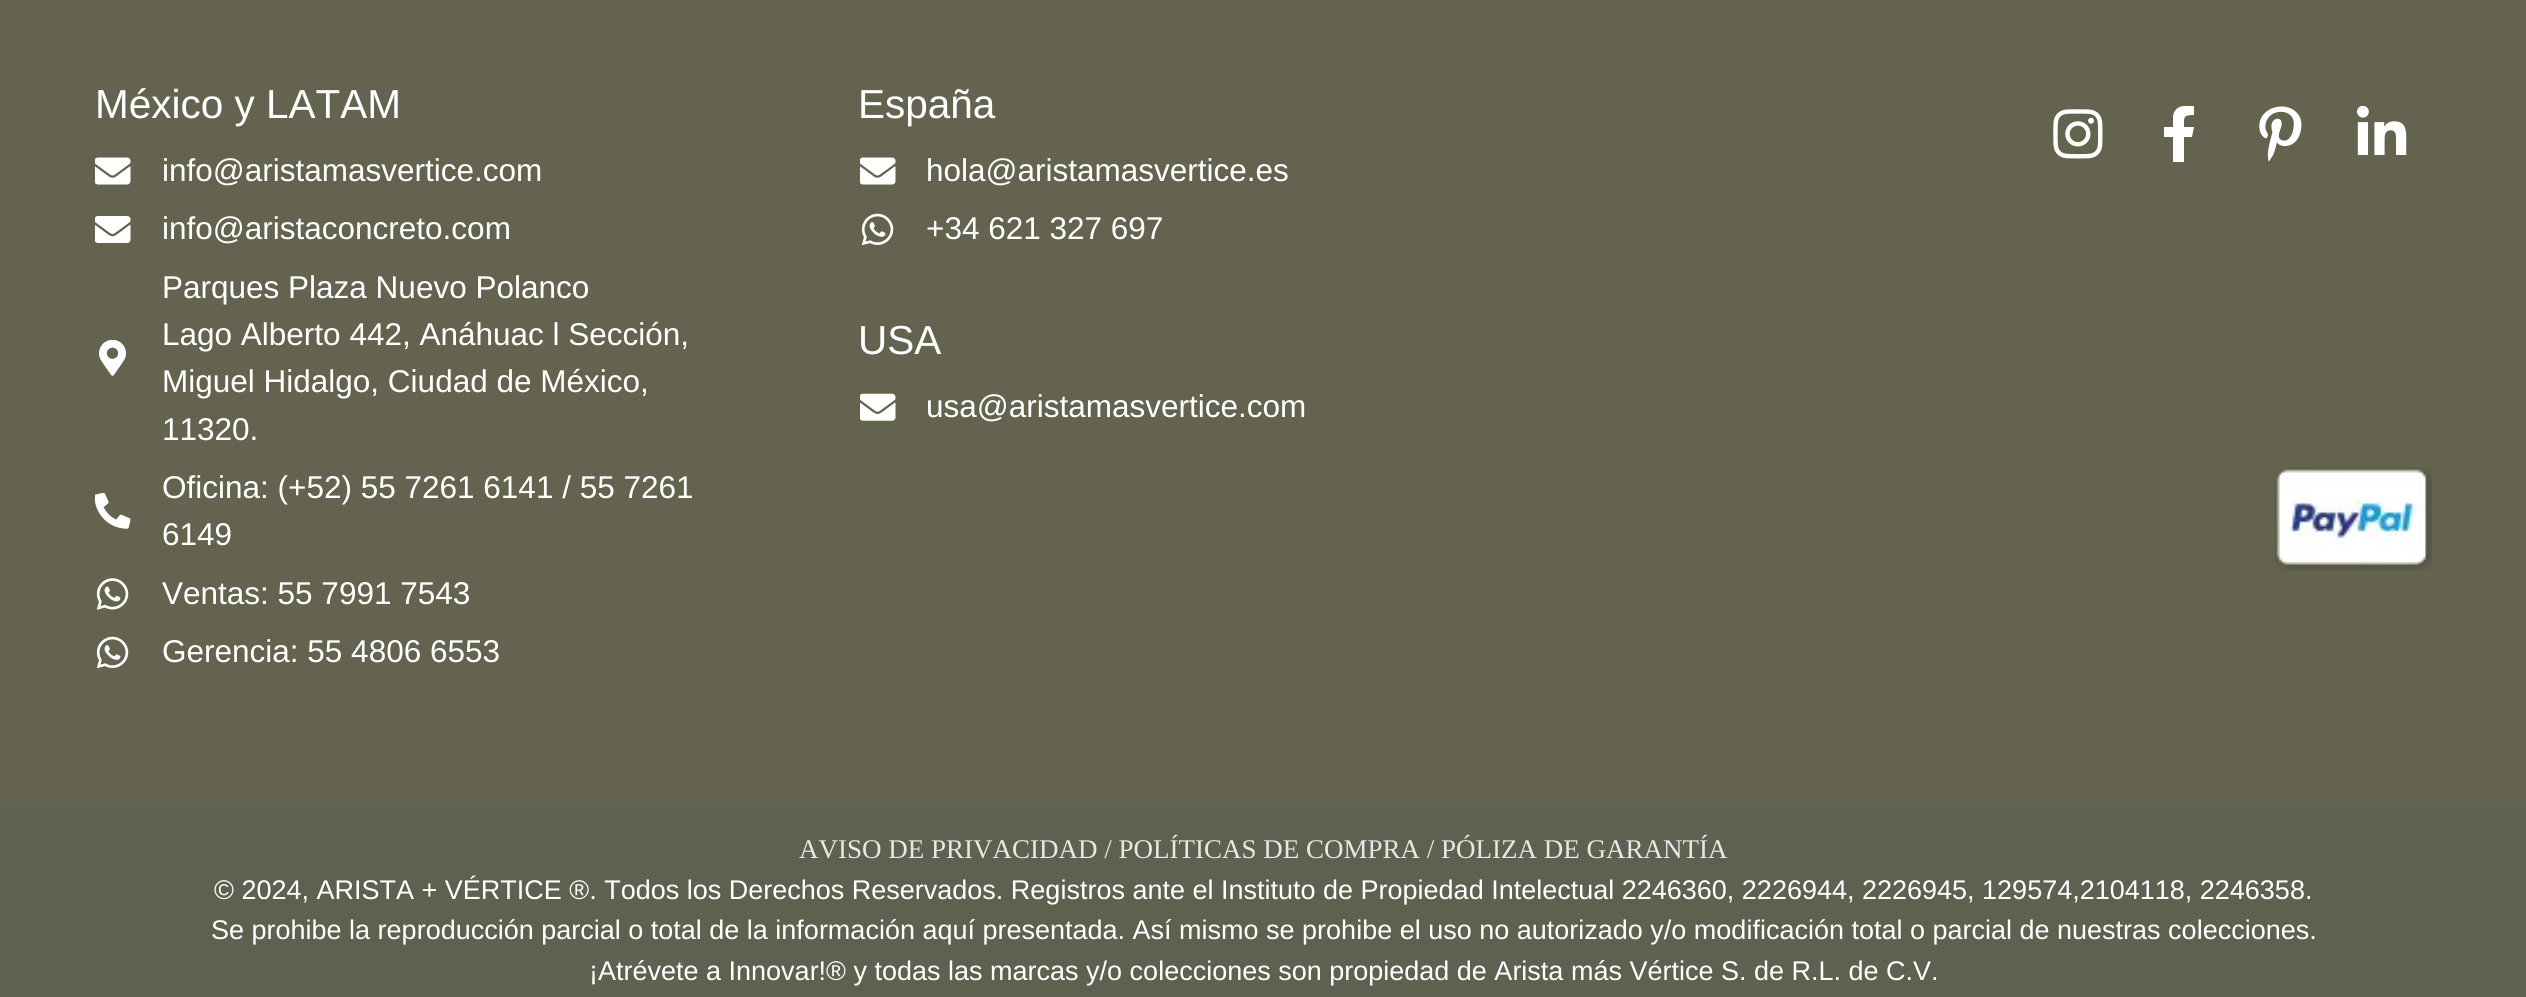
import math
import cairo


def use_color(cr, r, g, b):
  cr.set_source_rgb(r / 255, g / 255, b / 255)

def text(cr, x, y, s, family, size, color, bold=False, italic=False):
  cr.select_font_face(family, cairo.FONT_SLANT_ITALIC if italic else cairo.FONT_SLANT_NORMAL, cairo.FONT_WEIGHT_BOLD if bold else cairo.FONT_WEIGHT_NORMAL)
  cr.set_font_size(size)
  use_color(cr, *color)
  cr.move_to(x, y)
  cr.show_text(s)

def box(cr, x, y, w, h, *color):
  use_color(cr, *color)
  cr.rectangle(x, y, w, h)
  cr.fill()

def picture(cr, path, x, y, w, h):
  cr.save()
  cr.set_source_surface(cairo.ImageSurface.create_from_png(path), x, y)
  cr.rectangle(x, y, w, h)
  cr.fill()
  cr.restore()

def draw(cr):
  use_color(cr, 100, 99, 79)
  cr.paint()
  picture(cr, "img_01.png", 95, 157, 36, 28)
  picture(cr, "img_02.png", 95, 216, 36, 27)
  picture(cr, "img_03.png", 99, 340, 27, 36)
  picture(cr, "img_04.png", 95, 493, 36, 36)
  picture(cr, "img_05.png", 96, 578, 33, 32)
  picture(cr, "img_06.png", 96, 636, 33, 33)
  picture(cr, "img_01.png", 860, 157, 36, 28)
  picture(cr, "img_06.png", 861, 213, 33, 33)
  picture(cr, "img_07.png", 860, 393, 36, 28)
  picture(cr, "img_08.png", 2053, 109, 50, 50)
  cr.save()
  cr.rectangle(2151, 106, 56, 56)
  cr.clip()
  use_color(cr, 255, 255, 255)
  cr.new_path()
  cr.move_to(2192, 137)
  cr.line_to(2194, 127)
  cr.line_to(2184, 127)
  cr.curve_to(2184, 117, 2183, 115, 2194, 115)
  cr.line_to(2194, 106)
  cr.curve_to(2185, 105, 2175, 105, 2173, 116)
  cr.line_to(2173, 127)
  cr.line_to(2164, 127)
  cr.line_to(2164, 137)
  cr.line_to(2173, 137)
  cr.line_to(2173, 162)
  cr.line_to(2184, 162)
  cr.line_to(2184, 137)
  cr.close_path()
  cr.fill()
  cr.restore()
  picture(cr, "img_09.png", 2259, 106, 43, 56)
  picture(cr, "img_10.png", 2357, 106, 50, 49)
  picture(cr, "img_11.png", 2275, 467, 157, 104)
  box(cr, 0, 806, 2526, 191, 94, 97, 80)
  text(cr, 95, 118, "México y LATAM", "Liberation Sans", 40.5, (255, 255, 255))
  text(cr, 162, 181, "info@aristamasvertice.com", "Liberation Sans", 31.5, (255, 255, 255))
  text(cr, 162, 239, "info@aristaconcreto.com", "Liberation Sans", 31.5, (255, 255, 255))
  text(cr, 162, 298, "Parques Plaza Nuevo Polanco", "Liberation Sans", 31.5, (255, 255, 255))
  text(cr, 162, 345, "Lago Alberto 442, Anáhuac l Sección,", "Liberation Sans", 31.5, (255, 255, 255))
  text(cr, 162, 392, "Miguel Hidalgo, Ciudad de México,", "Liberation Sans", 31.5, (255, 255, 255))
  text(cr, 162, 440, "11320.", "Liberation Sans", 31.5, (255, 255, 255))
  text(cr, 162, 498, "Oficina: (+52) 55 7261 6141 / 55 7261", "Liberation Sans", 31.5, (255, 255, 255))
  text(cr, 162, 545, "6149", "Liberation Sans", 31.5, (255, 255, 255))
  text(cr, 162, 604, "Ventas: 55 7991 7543", "Liberation Sans", 31.5, (255, 255, 255))
  text(cr, 162, 662, "Gerencia: 55 4806 6553", "Liberation Sans", 31.5, (255, 255, 255))
  text(cr, 858, 118, "España", "Liberation Sans", 40.5, (255, 255, 255))
  text(cr, 926, 181, "hola@aristamasvertice.es", "Liberation Sans", 31.5, (255, 255, 255))
  text(cr, 926, 239, "+34 621 327 697", "Liberation Sans", 31.5, (255, 255, 255))
  text(cr, 858, 354, "USA", "Liberation Sans", 40.5, (255, 255, 255))
  text(cr, 926, 417, "usa@aristamasvertice.com", "Liberation Sans", 31.5, (255, 255, 255))
  text(cr, 799, 858, "AVISO DE PRIVACIDAD / POLÍTICAS DE COMPRA / PÓLIZA DE GARANTÍA", "Liberation Serif", 27, (232, 232, 232))
  text(cr, 214, 899, "© 2024, ARISTA + VÉRTICE ®. Todos los Derechos Reservados. Registros ante el Instituto de Propiedad Intelectual 2246360, 2226944, 2226945, 129574,2104118, 2246358.", "Liberation Sans", 27, (255, 255, 255))
  text(cr, 211, 939, "Se prohibe la reproducción parcial o total de la información aquí presentada. Así mismo se prohibe el uso no autorizado y/o modificación total o parcial de nuestras colecciones.", "Liberation Sans", 27, (255, 255, 255))
  text(cr, 589, 980, "¡Atrévete a Innovar!® y todas las marcas y/o colecciones son propiedad de Arista más Vértice S. de R.L. de C.V.", "Liberation Sans", 27, (255, 255, 255))


surface = cairo.ImageSurface(cairo.FORMAT_RGB24, 2526, 997)
cr = cairo.Context(surface)
options = cairo.FontOptions()
options.set_hint_metrics(cairo.HINT_METRICS_OFF)
options.set_hint_style(cairo.HINT_STYLE_NONE)
cr.set_font_options(options)
cr.set_miter_limit(4)
draw(cr)
surface.write_to_png("out.png")
